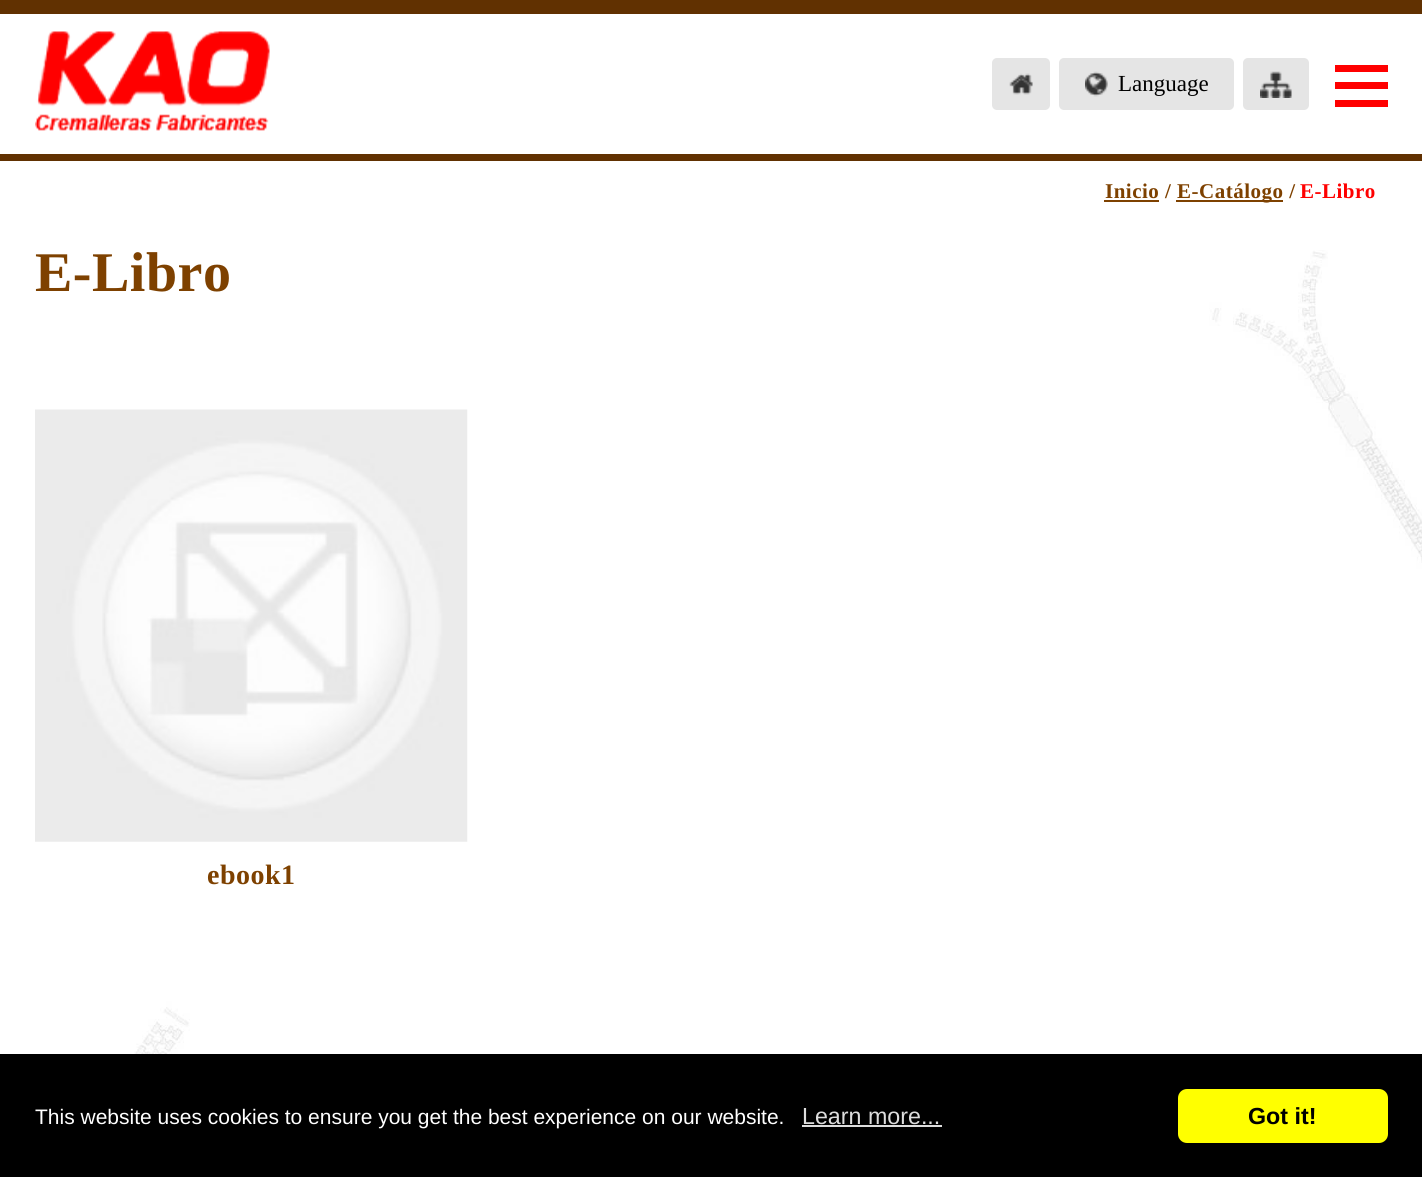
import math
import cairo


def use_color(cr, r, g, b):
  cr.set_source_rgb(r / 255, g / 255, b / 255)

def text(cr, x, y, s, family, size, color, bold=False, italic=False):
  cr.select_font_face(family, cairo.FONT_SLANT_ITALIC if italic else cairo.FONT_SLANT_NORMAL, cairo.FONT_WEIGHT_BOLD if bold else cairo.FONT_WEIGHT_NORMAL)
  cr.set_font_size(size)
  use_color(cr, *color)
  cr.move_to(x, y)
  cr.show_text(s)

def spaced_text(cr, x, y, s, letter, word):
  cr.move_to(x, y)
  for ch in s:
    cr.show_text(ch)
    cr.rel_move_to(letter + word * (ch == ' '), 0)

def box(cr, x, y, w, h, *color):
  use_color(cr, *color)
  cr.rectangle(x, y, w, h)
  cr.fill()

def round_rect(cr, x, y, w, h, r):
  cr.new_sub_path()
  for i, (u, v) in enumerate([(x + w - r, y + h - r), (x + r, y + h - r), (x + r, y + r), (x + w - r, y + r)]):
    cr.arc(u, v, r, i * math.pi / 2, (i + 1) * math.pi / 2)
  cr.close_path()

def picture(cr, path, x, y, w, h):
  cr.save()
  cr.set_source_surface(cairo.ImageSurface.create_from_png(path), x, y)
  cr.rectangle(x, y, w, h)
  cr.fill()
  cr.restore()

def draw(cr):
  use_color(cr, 255, 255, 255)
  cr.paint()
  box(cr, 0, 0, 1422, 14, 97, 49, 1)
  box(cr, 0, 154, 1422, 7, 97, 49, 1)
  picture(cr, "img_01.png", 35, 31, 235, 100)
  use_color(cr, 229, 229, 229)
  round_rect(cr, 992, 58, 58, 52, 5)
  cr.fill()
  picture(cr, "img_02.png", 1009, 73, 24, 22)
  round_rect(cr, 1059, 58, 175, 52, 5)
  cr.fill()
  picture(cr, "img_03.png", 1085, 71, 23, 26)
  round_rect(cr, 1243, 58, 66, 52, 5)
  cr.fill()
  picture(cr, "img_04.png", 1260, 71, 32, 27)
  box(cr, 1335, 65, 53, 7, 255, 0, 0)
  box(cr, 1335, 82, 53, 7, 255, 0, 0)
  box(cr, 1335, 100, 53, 7, 255, 0, 0)
  picture(cr, "img_05.png", 53, 250, 1369, 804)
  box(cr, 1104, 200, 55, 2, 126, 65, 0)
  box(cr, 1176, 200, 107, 2, 126, 65, 0)
  picture(cr, "img_06.png", 35, 409, 433, 433)
  box(cr, 0, 1054, 1422, 123, 0, 0, 0)
  box(cr, 802, 1125, 140, 2, 221, 221, 221)
  use_color(cr, 255, 255, 0)
  round_rect(cr, 1178, 1089, 210, 54, 9)
  cr.fill()
  text(cr, 1118, 91, "Language", "Liberation Serif", 23, (0, 0, 0))
  cr.select_font_face("Liberation Serif", cairo.FONT_SLANT_NORMAL, cairo.FONT_WEIGHT_BOLD)
  cr.set_font_size(21)
  use_color(cr, 126, 65, 0)
  spaced_text(cr, 1105, 198, "Inicio /", 0.5, 0)
  spaced_text(cr, 1177, 198, "E-Catálogo /", 0.5, 0)
  use_color(cr, 255, 0, 0)
  spaced_text(cr, 1300, 198, "E-Libro", 0.5, 0)
  cr.set_font_size(56)
  use_color(cr, 126, 65, 0)
  spaced_text(cr, 35, 291, "E-Libro", 0.5, 0)
  cr.set_font_size(28)
  spaced_text(cr, 207, 884, "ebook1", 0.5, 0)
  text(cr, 35, 1124, "This website uses cookies to ensure you get the best experience on our website.", "Liberation Sans", 21, (255, 255, 255))
  text(cr, 802, 1124, "Learn more...", "Liberation Sans", 23.25, (221, 221, 221))
  text(cr, 1248, 1124, "Got it!", "Liberation Sans", 23.25, (0, 0, 0), bold=True)


surface = cairo.ImageSurface(cairo.FORMAT_RGB24, 1422, 1177)
cr = cairo.Context(surface)
options = cairo.FontOptions()
options.set_hint_metrics(cairo.HINT_METRICS_OFF)
options.set_hint_style(cairo.HINT_STYLE_NONE)
cr.set_font_options(options)
cr.set_miter_limit(4)
draw(cr)
surface.write_to_png("out.png")
